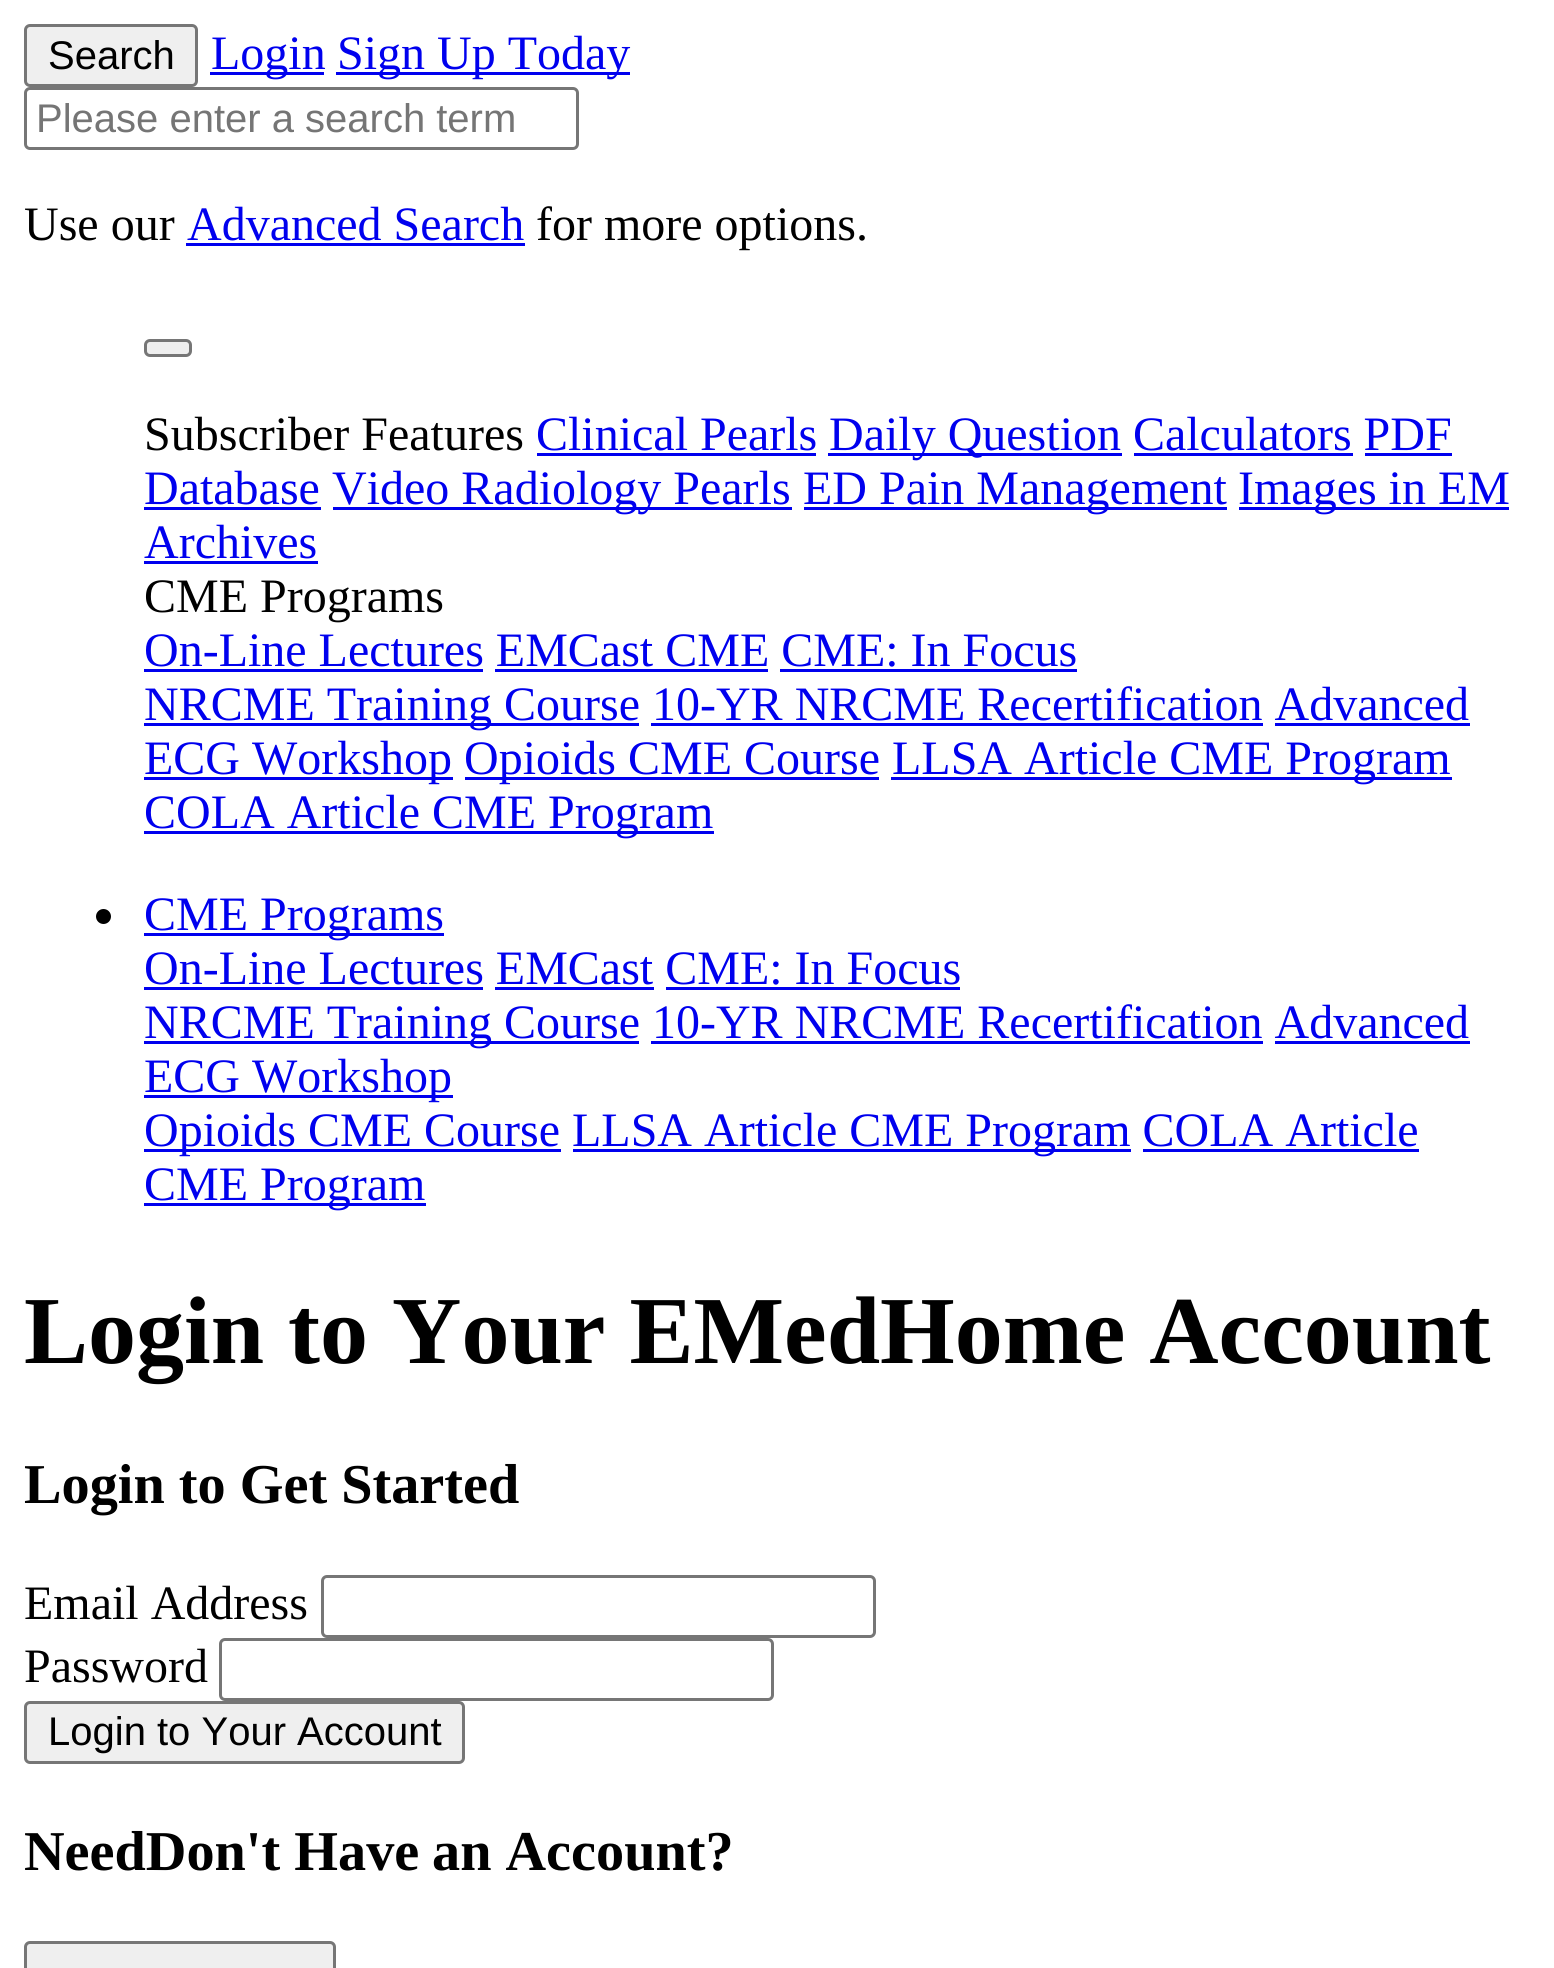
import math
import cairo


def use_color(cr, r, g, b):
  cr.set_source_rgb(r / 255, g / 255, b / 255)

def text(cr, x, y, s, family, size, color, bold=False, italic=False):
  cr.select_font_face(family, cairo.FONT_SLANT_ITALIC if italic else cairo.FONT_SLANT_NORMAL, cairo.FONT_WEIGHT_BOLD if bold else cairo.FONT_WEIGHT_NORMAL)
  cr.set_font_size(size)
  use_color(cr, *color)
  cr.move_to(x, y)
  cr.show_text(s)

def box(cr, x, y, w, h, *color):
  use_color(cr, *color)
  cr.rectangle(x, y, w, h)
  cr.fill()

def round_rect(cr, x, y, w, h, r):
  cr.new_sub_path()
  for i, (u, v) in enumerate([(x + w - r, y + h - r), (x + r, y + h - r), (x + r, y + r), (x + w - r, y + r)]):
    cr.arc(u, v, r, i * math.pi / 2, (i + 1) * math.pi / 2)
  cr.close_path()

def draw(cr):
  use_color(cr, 255, 255, 255)
  cr.paint()
  use_color(cr, 239, 239, 239)
  round_rect(cr, 25.5, 25.5, 171, 60, 4.5)
  cr.fill_preserve()
  use_color(cr, 118, 118, 118)
  cr.set_line_width(3)
  cr.stroke()
  box(cr, 210, 72, 114, 3, 0, 0, 238)
  box(cr, 336, 72, 294, 3, 0, 0, 238)
  round_rect(cr, 25.5, 88.5, 552, 60, 4.5)
  use_color(cr, 118, 118, 118)
  cr.stroke()
  box(cr, 186, 243, 339, 3, 0, 0, 238)
  use_color(cr, 239, 239, 239)
  round_rect(cr, 145.5, 340.5, 45, 15, 4.5)
  cr.fill_preserve()
  use_color(cr, 118, 118, 118)
  cr.stroke()
  box(cr, 537, 453, 279, 3, 0, 0, 238)
  box(cr, 828, 453, 294, 3, 0, 0, 238)
  box(cr, 1134, 453, 219, 3, 0, 0, 238)
  box(cr, 1365, 453, 87, 3, 0, 0, 238)
  box(cr, 144, 507, 177, 3, 0, 0, 238)
  box(cr, 333, 507, 459, 3, 0, 0, 238)
  box(cr, 804, 507, 423, 3, 0, 0, 238)
  box(cr, 1239, 507, 270, 3, 0, 0, 238)
  box(cr, 144, 561, 174, 3, 0, 0, 238)
  box(cr, 144, 669, 339, 3, 0, 0, 238)
  box(cr, 495, 669, 273, 3, 0, 0, 238)
  box(cr, 780, 669, 297, 3, 0, 0, 238)
  box(cr, 144, 723, 495, 3, 0, 0, 238)
  box(cr, 651, 723, 612, 3, 0, 0, 238)
  box(cr, 1275, 723, 195, 3, 0, 0, 238)
  box(cr, 144, 777, 309, 3, 0, 0, 238)
  box(cr, 465, 777, 414, 3, 0, 0, 238)
  box(cr, 891, 777, 561, 3, 0, 0, 238)
  box(cr, 144, 831, 570, 3, 0, 0, 238)
  use_color(cr, 0, 0, 0)
  cr.arc(103.5, 916.5, 7.5, 0, 2 * math.pi)
  cr.fill()
  box(cr, 144, 933, 300, 3, 0, 0, 238)
  box(cr, 144, 987, 339, 3, 0, 0, 238)
  box(cr, 495, 987, 159, 3, 0, 0, 238)
  box(cr, 666, 987, 294, 3, 0, 0, 238)
  box(cr, 144, 1041, 495, 3, 0, 0, 238)
  box(cr, 651, 1041, 612, 3, 0, 0, 238)
  box(cr, 1275, 1041, 195, 3, 0, 0, 238)
  box(cr, 144, 1095, 309, 3, 0, 0, 238)
  box(cr, 144, 1149, 417, 3, 0, 0, 238)
  box(cr, 573, 1149, 558, 3, 0, 0, 238)
  box(cr, 1143, 1149, 276, 3, 0, 0, 238)
  box(cr, 144, 1203, 282, 3, 0, 0, 238)
  round_rect(cr, 322.5, 1576.5, 552, 60, 4.5)
  use_color(cr, 118, 118, 118)
  cr.stroke()
  round_rect(cr, 220.5, 1639.5, 552, 60, 4.5)
  cr.stroke()
  use_color(cr, 239, 239, 239)
  round_rect(cr, 25.5, 1702.5, 438, 60, 4.5)
  cr.fill_preserve()
  use_color(cr, 118, 118, 118)
  cr.stroke()
  use_color(cr, 239, 239, 239)
  round_rect(cr, 25.5, 1942.5, 309, 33, 4.5)
  cr.fill_preserve()
  use_color(cr, 118, 118, 118)
  cr.stroke()
  text(cr, 48, 69, "Search", "Liberation Sans", 40, (0, 0, 0))
  text(cr, 211, 69, "Login", "Liberation Serif", 48, (0, 0, 238))
  text(cr, 337, 69, "Sign Up Today", "Liberation Serif", 48, (0, 0, 238))
  text(cr, 36, 132, "Please enter a search term", "Liberation Sans", 40, (117, 117, 117))
  text(cr, 24, 240, "Use our", "Liberation Serif", 48, (0, 0, 0))
  text(cr, 187, 240, "Advanced Search", "Liberation Serif", 48, (0, 0, 238))
  text(cr, 536, 240, "for more options.", "Liberation Serif", 48, (0, 0, 0))
  text(cr, 144, 450, "Subscriber Features", "Liberation Serif", 48, (0, 0, 0))
  text(cr, 536, 450, "Clinical Pearls", "Liberation Serif", 48, (0, 0, 238))
  text(cr, 829, 450, "Daily Question Calculators PDF", "Liberation Serif", 48, (0, 0, 238))
  text(cr, 144, 504, "Database", "Liberation Serif", 48, (0, 0, 238))
  text(cr, 332, 504, "Video Radiology Pearls", "Liberation Serif", 48, (0, 0, 238))
  text(cr, 803, 504, "ED Pain Management", "Liberation Serif", 48, (0, 0, 238))
  text(cr, 1238, 504, "Images in EM", "Liberation Serif", 48, (0, 0, 238))
  text(cr, 144, 558, "Archives", "Liberation Serif", 48, (0, 0, 238))
  text(cr, 144, 612, "CME Programs", "Liberation Serif", 48, (0, 0, 0))
  text(cr, 144, 666, "On-Line Lectures EMCast CME CME: In Focus", "Liberation Serif", 48, (0, 0, 238))
  text(cr, 144, 720, "NRCME Training Course 10-YR NRCME Recertification Advanced", "Liberation Serif", 48, (0, 0, 238))
  text(cr, 144, 774, "ECG Workshop", "Liberation Serif", 48, (0, 0, 238))
  text(cr, 464, 774, "Opioids CME Course", "Liberation Serif", 48, (0, 0, 238))
  text(cr, 892, 774, "LLSA Article CME Program", "Liberation Serif", 48, (0, 0, 238))
  text(cr, 144, 828, "COLA Article CME Program", "Liberation Serif", 48, (0, 0, 238))
  text(cr, 144, 930, "CME Programs", "Liberation Serif", 48, (0, 0, 238))
  text(cr, 144, 984, "On-Line Lectures EMCast CME: In Focus", "Liberation Serif", 48, (0, 0, 238))
  text(cr, 144, 1038, "NRCME Training Course 10-YR NRCME Recertification Advanced", "Liberation Serif", 48, (0, 0, 238))
  text(cr, 144, 1092, "ECG Workshop", "Liberation Serif", 48, (0, 0, 238))
  text(cr, 144, 1146, "Opioids CME Course", "Liberation Serif", 48, (0, 0, 238))
  text(cr, 572, 1146, "LLSA Article CME Program COLA Article", "Liberation Serif", 48, (0, 0, 238))
  text(cr, 144, 1200, "CME Program", "Liberation Serif", 48, (0, 0, 238))
  text(cr, 24, 1363, "Login to Your EMedHome Account", "Liberation Serif", 96, (0, 0, 0), bold=True)
  text(cr, 24, 1503, "Login to Get Started", "Liberation Serif", 56.25, (0, 0, 0), bold=True)
  text(cr, 24, 1619, "Email Address", "Liberation Serif", 48, (0, 0, 0))
  text(cr, 24, 1682, "Password", "Liberation Serif", 48, (0, 0, 0))
  text(cr, 48, 1745, "Login to Your Account", "Liberation Sans", 40, (0, 0, 0))
  text(cr, 24, 1870, "NeedDon't Have", "Liberation Serif", 56.25, (0, 0, 0), bold=True)
  text(cr, 432, 1870, "an Account?", "Liberation Serif", 56.25, (0, 0, 0), bold=True)


surface = cairo.ImageSurface(cairo.FORMAT_RGB24, 1554, 1968)
cr = cairo.Context(surface)
options = cairo.FontOptions()
options.set_hint_metrics(cairo.HINT_METRICS_OFF)
options.set_hint_style(cairo.HINT_STYLE_NONE)
cr.set_font_options(options)
cr.set_miter_limit(4)
draw(cr)
surface.write_to_png("out.png")
